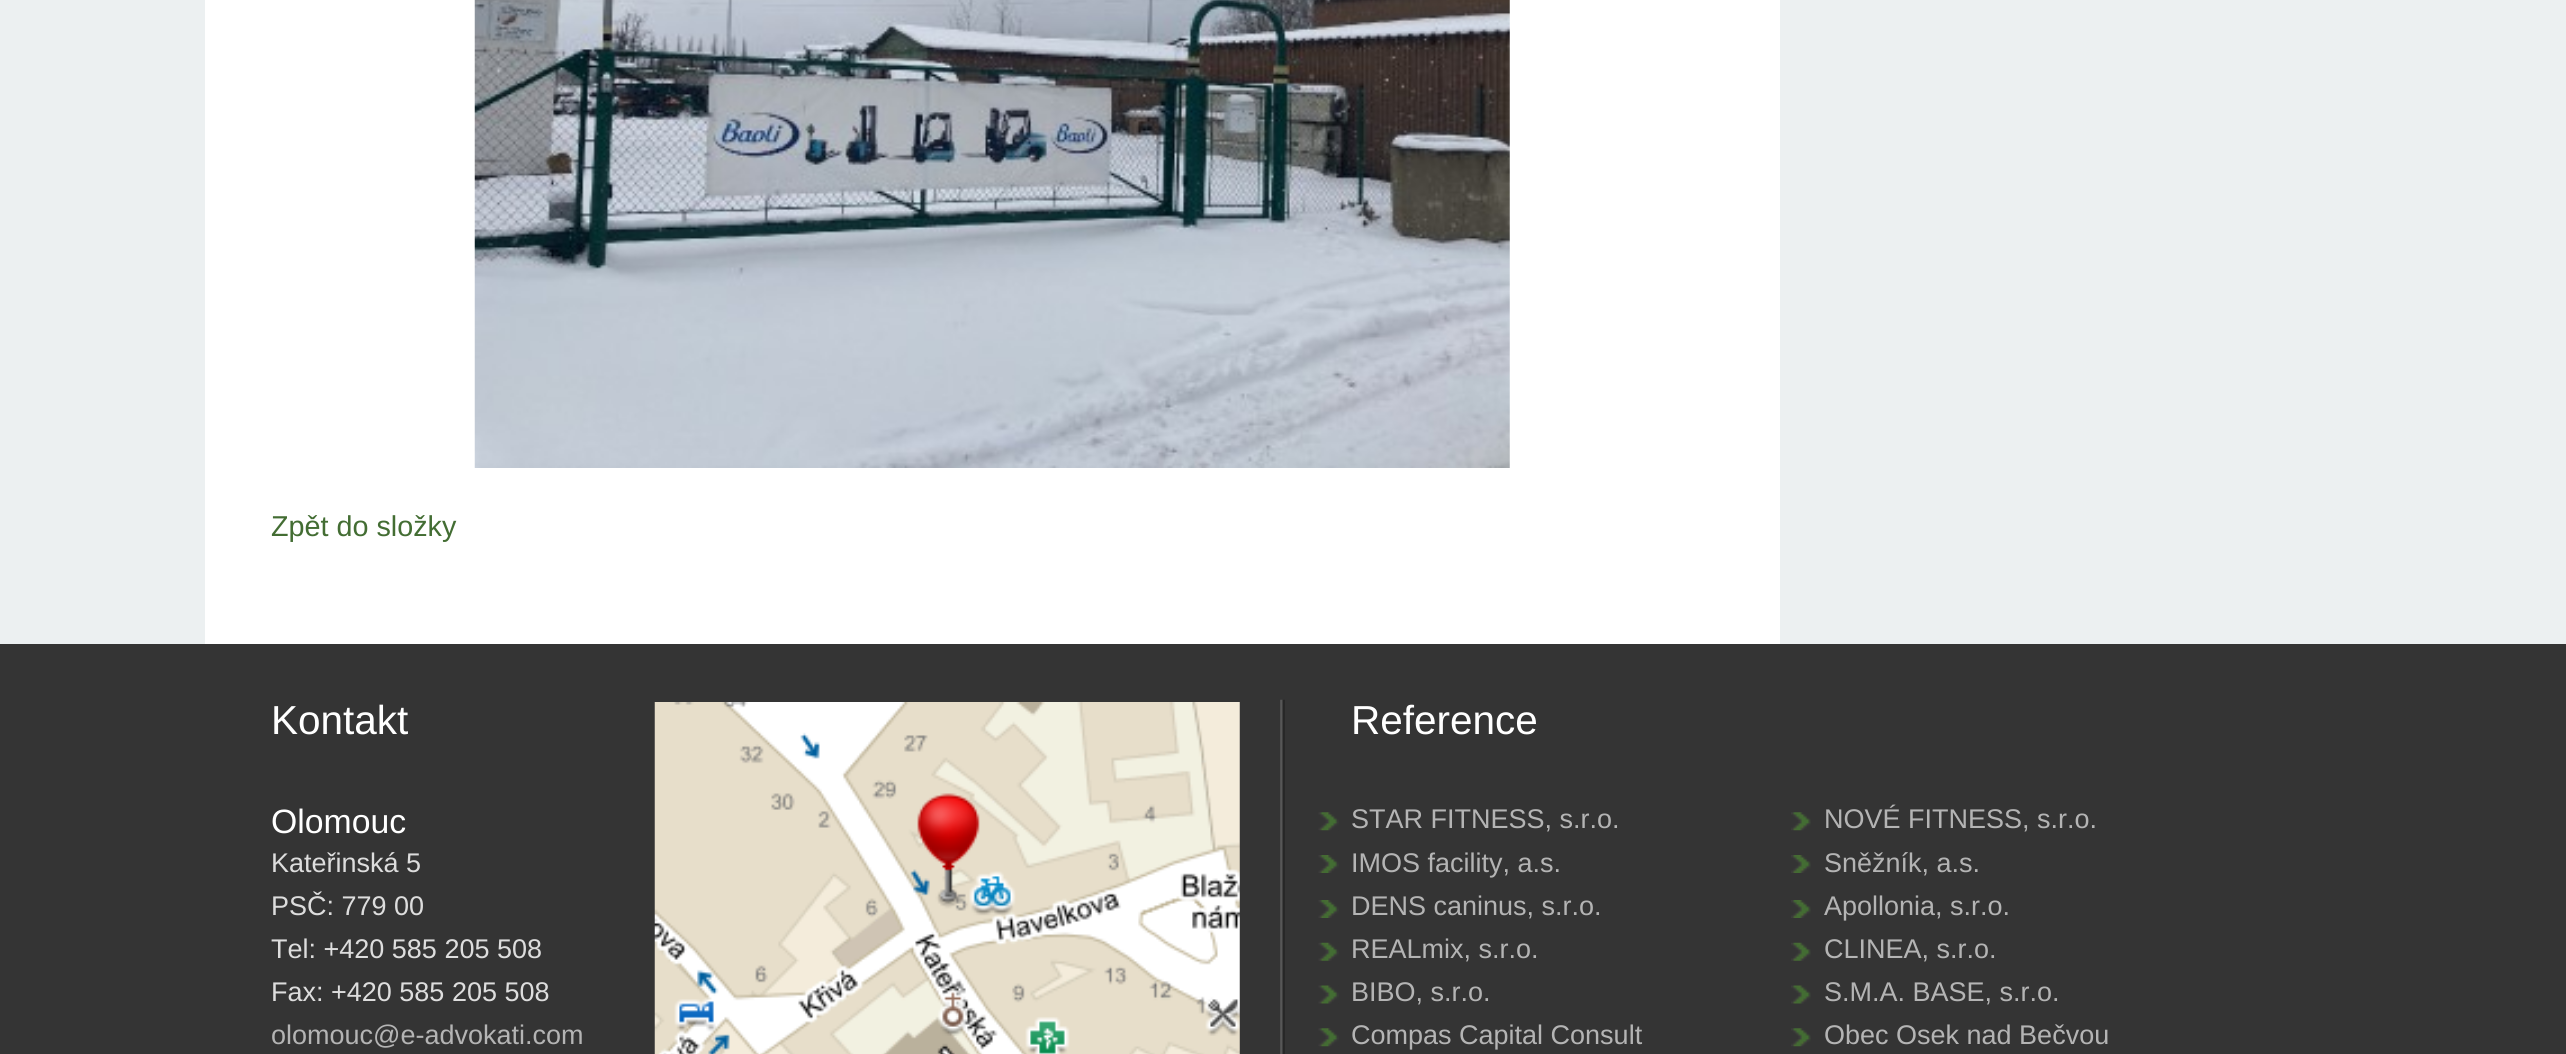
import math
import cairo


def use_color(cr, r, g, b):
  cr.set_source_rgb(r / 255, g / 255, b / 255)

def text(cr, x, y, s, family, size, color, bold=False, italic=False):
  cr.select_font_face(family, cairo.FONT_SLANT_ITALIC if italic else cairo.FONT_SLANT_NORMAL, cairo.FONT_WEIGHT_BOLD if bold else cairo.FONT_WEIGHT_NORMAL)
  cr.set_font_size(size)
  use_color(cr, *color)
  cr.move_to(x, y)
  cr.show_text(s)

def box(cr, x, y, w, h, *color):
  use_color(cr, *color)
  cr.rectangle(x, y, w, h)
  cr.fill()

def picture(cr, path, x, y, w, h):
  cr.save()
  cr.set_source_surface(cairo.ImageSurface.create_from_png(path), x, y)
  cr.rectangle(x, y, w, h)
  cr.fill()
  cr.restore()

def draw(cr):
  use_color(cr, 236, 240, 241)
  cr.paint()
  box(cr, 205, 0, 1575, 644, 255, 255, 255)
  picture(cr, "img_01.png", 474, 0, 1036, 468)
  box(cr, 0, 644, 2566, 410, 52, 52, 52)
  picture(cr, "img_02.png", 1280, 699, 5, 355)
  picture(cr, "img_03.png", 654, 702, 586, 352)
  picture(cr, "img_04.png", 1318, 812, 21, 19)
  picture(cr, "img_05.png", 1791, 812, 20, 19)
  picture(cr, "img_06.png", 1318, 855, 21, 18)
  picture(cr, "img_07.png", 1791, 855, 20, 18)
  picture(cr, "img_06.png", 1318, 900, 21, 18)
  picture(cr, "img_07.png", 1791, 900, 20, 18)
  picture(cr, "img_08.png", 1318, 942, 21, 19)
  picture(cr, "img_09.png", 1791, 942, 20, 19)
  picture(cr, "img_10.png", 1318, 985, 21, 19)
  picture(cr, "img_11.png", 1791, 985, 20, 19)
  picture(cr, "img_04.png", 1318, 1028, 21, 19)
  picture(cr, "img_05.png", 1791, 1028, 20, 19)
  text(cr, 271, 536, "Zpět do složky", "Liberation Sans", 28.75, (67, 109, 51))
  text(cr, 271, 734, "Kontakt", "Liberation Sans", 40.5, (255, 255, 255))
  text(cr, 271, 833, "Olomouc", "Liberation Sans", 33.75, (255, 255, 255))
  text(cr, 271, 872, "Kateřinská 5", "Liberation Sans", 27, (221, 221, 221))
  text(cr, 271, 915, "PSČ: 779 00", "Liberation Sans", 27, (221, 221, 221))
  text(cr, 271, 958, "Tel: +420 585 205 508", "Liberation Sans", 27, (221, 221, 221))
  text(cr, 271, 1001, "Fax: +420 585 205 508", "Liberation Sans", 27, (221, 221, 221))
  text(cr, 271, 1044, "olomouc@e-advokati.com", "Liberation Sans", 27, (180, 180, 180))
  text(cr, 1351, 734, "Reference", "Liberation Sans", 40.5, (255, 255, 255))
  text(cr, 1351, 828, "STAR FITNESS, s.r.o.", "Liberation Sans", 27, (180, 180, 180))
  text(cr, 1824, 828, "NOVÉ FITNESS, s.r.o.", "Liberation Sans", 27, (180, 180, 180))
  text(cr, 1351, 872, "IMOS facility, a.s.", "Liberation Sans", 27, (180, 180, 180))
  text(cr, 1824, 872, "Sněžník, a.s.", "Liberation Sans", 27, (180, 180, 180))
  text(cr, 1351, 915, "DENS caninus, s.r.o.", "Liberation Sans", 27, (180, 180, 180))
  text(cr, 1824, 915, "Apollonia, s.r.o.", "Liberation Sans", 27, (180, 180, 180))
  text(cr, 1351, 958, "REALmix, s.r.o.", "Liberation Sans", 27, (180, 180, 180))
  text(cr, 1824, 958, "CLINEA, s.r.o.", "Liberation Sans", 27, (180, 180, 180))
  text(cr, 1351, 1001, "BIBO, s.r.o.", "Liberation Sans", 27, (180, 180, 180))
  text(cr, 1824, 1001, "S.M.A. BASE, s.r.o.", "Liberation Sans", 27, (180, 180, 180))
  text(cr, 1351, 1044, "Compas Capital Consult", "Liberation Sans", 27, (180, 180, 180))
  text(cr, 1824, 1044, "Obec Osek nad Bečvou", "Liberation Sans", 27, (180, 180, 180))


surface = cairo.ImageSurface(cairo.FORMAT_RGB24, 2566, 1054)
cr = cairo.Context(surface)
options = cairo.FontOptions()
options.set_hint_metrics(cairo.HINT_METRICS_OFF)
options.set_hint_style(cairo.HINT_STYLE_NONE)
cr.set_font_options(options)
cr.set_miter_limit(4)
draw(cr)
surface.write_to_png("out.png")
